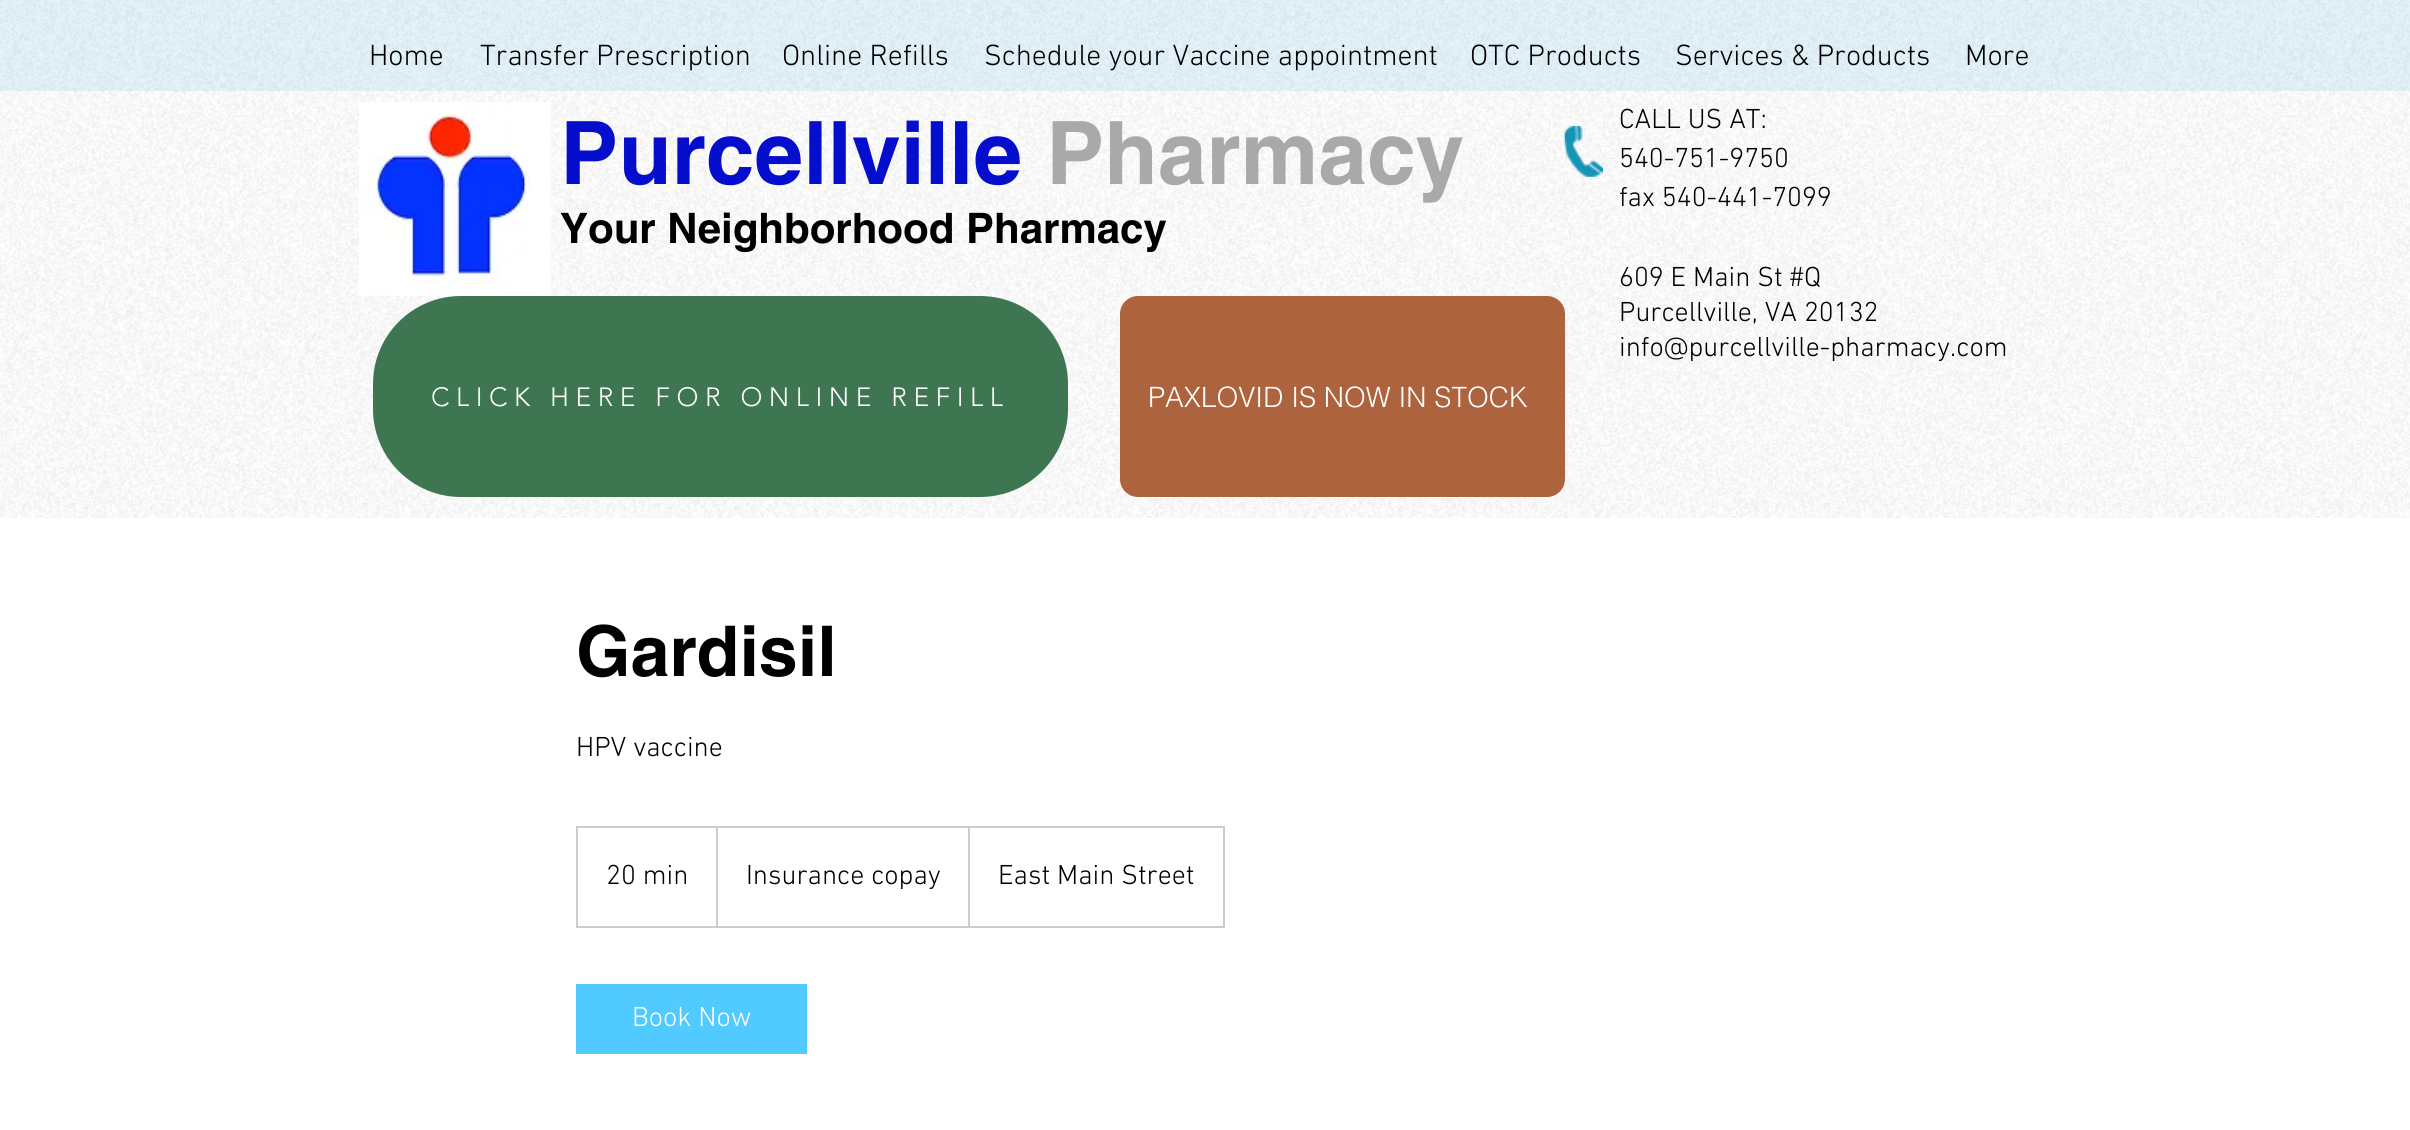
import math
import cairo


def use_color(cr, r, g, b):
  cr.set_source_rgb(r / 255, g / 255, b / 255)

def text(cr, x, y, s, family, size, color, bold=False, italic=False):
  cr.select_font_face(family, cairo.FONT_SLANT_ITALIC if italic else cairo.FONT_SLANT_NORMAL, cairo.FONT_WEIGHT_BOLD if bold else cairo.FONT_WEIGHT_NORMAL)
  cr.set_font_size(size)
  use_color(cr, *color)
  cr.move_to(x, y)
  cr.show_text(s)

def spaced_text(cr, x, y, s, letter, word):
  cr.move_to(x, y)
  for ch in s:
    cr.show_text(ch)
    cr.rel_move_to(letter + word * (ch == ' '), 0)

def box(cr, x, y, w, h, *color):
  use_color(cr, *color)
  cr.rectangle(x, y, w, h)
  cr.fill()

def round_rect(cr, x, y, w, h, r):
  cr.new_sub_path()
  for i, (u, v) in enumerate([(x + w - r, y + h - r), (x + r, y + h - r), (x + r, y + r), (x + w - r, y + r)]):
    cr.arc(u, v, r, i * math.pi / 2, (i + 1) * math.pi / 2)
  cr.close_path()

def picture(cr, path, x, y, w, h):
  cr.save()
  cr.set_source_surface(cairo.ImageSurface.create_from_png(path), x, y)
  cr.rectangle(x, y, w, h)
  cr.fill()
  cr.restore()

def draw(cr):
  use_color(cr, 255, 255, 255)
  cr.paint()
  picture(cr, "img_01.png", 0, 0, 2410, 518)
  cr.set_source_rgba(0.004, 0.592, 0.851, 0.1)
  cr.rectangle(0, 0, 2410, 91)
  cr.fill()
  picture(cr, "img_02.png", 359, 102, 192, 194)
  picture(cr, "img_03.png", 1564, 126, 39, 51)
  use_color(cr, 63, 118, 82)
  round_rect(cr, 373, 296, 695, 201, 88)
  cr.fill()
  use_color(cr, 174, 99, 63)
  round_rect(cr, 1120, 296, 445, 201, 18)
  cr.fill()
  cr.rectangle(577, 827, 647, 100)
  use_color(cr, 204, 204, 204)
  cr.stroke()
  cr.save()
  cr.rectangle(578, 828, 645, 98)
  cr.clip()
  cr.new_path()
  cr.move_to(716, 926)
  cr.line_to(716, 826)
  cr.line_to(718, 828)
  cr.line_to(718, 926)
  cr.close_path()
  cr.fill()
  cr.new_path()
  cr.move_to(968, 926)
  cr.line_to(968, 826)
  cr.line_to(970, 828)
  cr.line_to(970, 926)
  cr.close_path()
  cr.fill()
  cr.restore()
  box(cr, 576, 984, 231, 70, 80, 202, 255)
  text(cr, 369, 65, "Home", "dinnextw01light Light", 29.75, (0, 0, 0))
  text(cr, 480, 65, "Transfer Prescription", "dinnextw01light Light", 29.75, (0, 0, 0))
  text(cr, 782, 65, "Online Refills", "dinnextw01light Light", 29.75, (0, 0, 0))
  text(cr, 984, 65, "Schedule your Vaccine appointment", "dinnextw01light Light", 29.75, (0, 0, 0))
  text(cr, 1470, 65, "OTC Products", "dinnextw01light Light", 29.75, (0, 0, 0))
  text(cr, 1675, 65, "Services & Products", "dinnextw01light Light", 29.75, (0, 0, 0))
  text(cr, 1965, 65, "More", "dinnextw01light Light", 29.75, (0, 0, 0))
  text(cr, 560, 184, "Purcellville", "helvetica", 87.5, (4, 14, 204), bold=True)
  text(cr, 1046, 184, "Pharmacy", "helvetica", 87.5, (170, 168, 168), bold=True)
  text(cr, 560, 243, "Your Neighborhood Pharmacy", "helvetica", 42, (0, 0, 0), bold=True)
  text(cr, 1619, 128, "CALL US AT:", "dinnextw01light Light", 28, (0, 0, 0))
  text(cr, 1619, 167, "540-751-9750", "dinnextw01light Light", 28, (0, 0, 0))
  text(cr, 1619, 206, "fax 540-441-7099", "dinnextw01light Light", 28, (0, 0, 0))
  text(cr, 1619, 286, "609 E Main St #Q", "dinnextw01light Light", 28, (0, 0, 0))
  text(cr, 1619, 321, "Purcellville, VA 20132", "dinnextw01light Light", 28, (0, 0, 0))
  text(cr, 1619, 356, "info@purcellville-pharmacy.com", "dinnextw01light Light", 28, (0, 0, 0))
  cr.select_font_face("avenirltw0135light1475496 Light")
  cr.set_font_size(26.25)
  use_color(cr, 255, 255, 255)
  spaced_text(cr, 431, 406, "CLICK HERE FOR ONLINE REFILL", 6.55, 0)
  text(cr, 1148, 407, "PAXLOVID IS NOW IN STOCK", "helvetica Light", 28, (255, 255, 255))
  text(cr, 576, 676, "Gardisil", "helvetica", 70, (0, 0, 0), bold=True)
  text(cr, 576, 756, "HPV vaccine", "dinnextw01light Light", 28, (0, 0, 0))
  text(cr, 606, 884, "20 min", "dinnextw01light Light", 28, (0, 0, 0))
  text(cr, 746, 884, "Insurance copay", "dinnextw01light Light", 28, (0, 0, 0))
  text(cr, 998, 884, "East Main Street", "dinnextw01light Light", 28, (0, 0, 0))
  text(cr, 632, 1026, "Book Now", "dinnextw01light Light", 28, (255, 255, 255))


surface = cairo.ImageSurface(cairo.FORMAT_RGB24, 2410, 1130)
cr = cairo.Context(surface)
options = cairo.FontOptions()
options.set_hint_metrics(cairo.HINT_METRICS_OFF)
options.set_hint_style(cairo.HINT_STYLE_NONE)
cr.set_font_options(options)
cr.set_miter_limit(4)
draw(cr)
surface.write_to_png("out.png")
